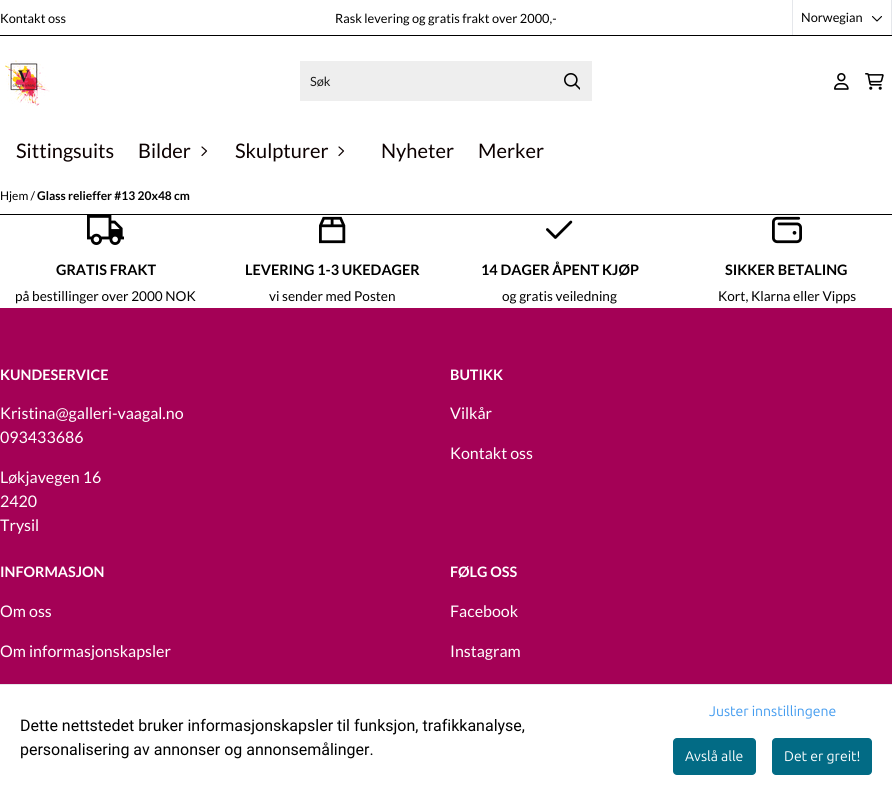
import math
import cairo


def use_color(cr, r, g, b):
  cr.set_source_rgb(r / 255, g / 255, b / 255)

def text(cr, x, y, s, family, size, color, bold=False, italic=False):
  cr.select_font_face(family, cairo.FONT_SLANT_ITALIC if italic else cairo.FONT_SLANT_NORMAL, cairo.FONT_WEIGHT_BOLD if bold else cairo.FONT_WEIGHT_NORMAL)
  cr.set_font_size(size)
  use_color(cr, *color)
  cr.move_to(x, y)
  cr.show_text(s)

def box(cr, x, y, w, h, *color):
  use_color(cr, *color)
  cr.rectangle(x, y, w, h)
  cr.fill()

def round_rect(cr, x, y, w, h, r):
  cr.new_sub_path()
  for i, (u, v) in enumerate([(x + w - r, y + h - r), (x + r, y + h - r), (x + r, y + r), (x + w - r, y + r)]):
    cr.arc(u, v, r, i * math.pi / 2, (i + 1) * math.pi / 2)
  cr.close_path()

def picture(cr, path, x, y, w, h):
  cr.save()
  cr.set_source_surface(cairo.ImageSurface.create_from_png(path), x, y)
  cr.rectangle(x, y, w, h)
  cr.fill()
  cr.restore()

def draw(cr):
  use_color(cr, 255, 255, 255)
  cr.paint()
  box(cr, 0, 35, 892, 1, 0, 0, 0)
  box(cr, 891, 0, 1, 35, 229, 231, 235)
  box(cr, 792, 0, 1, 35, 229, 231, 235)
  picture(cr, "img_01.png", 872, 16, 10, 6)
  picture(cr, "img_02.png", 5, 60, 45, 46)
  box(cr, 300, 61, 292, 40, 238, 238, 238)
  picture(cr, "img_03.png", 564, 73, 16, 17)
  picture(cr, "img_04.png", 834, 73, 15, 17)
  picture(cr, "img_05.png", 865, 73, 19, 17)
  cr.new_path()
  cr.move_to(202, 147)
  cr.line_to(206.5, 151)
  cr.line_to(202, 155.5)
  use_color(cr, 11, 0, 0)
  cr.set_line_width(1.2)
  cr.set_line_cap(cairo.LINE_CAP_ROUND)
  cr.set_line_join(cairo.LINE_JOIN_ROUND)
  cr.stroke()
  cr.new_path()
  cr.move_to(339, 147)
  cr.line_to(343.5, 151)
  cr.line_to(339, 155.5)
  cr.stroke()
  box(cr, 0, 214, 892, 1, 0, 0, 0)
  picture(cr, "img_06.png", 87, 215, 37, 30)
  picture(cr, "img_07.png", 319, 216, 27, 28)
  picture(cr, "img_08.png", 546, 220, 27, 19)
  picture(cr, "img_09.png", 772, 216, 30, 28)
  box(cr, 0, 308, 892, 376, 164, 1, 86)
  box(cr, 0, 684, 892, 1, 229, 231, 235)
  use_color(cr, 2, 107, 133)
  round_rect(cr, 673, 738, 83, 37, 4)
  cr.fill()
  round_rect(cr, 772, 738, 100, 37, 4)
  cr.fill()
  text(cr, 0, 23, "Kontakt oss", "Lato", 12.75, (0, 0, 0))
  text(cr, 335, 23, "Rask levering og gratis frakt over 2000,-", "Lato", 12.75, (0, 0, 0))
  text(cr, 801, 22, "Norwegian", "Lato", 12.75, (0, 0, 0))
  text(cr, 310, 86, "Søk", "Lato", 12.75, (27, 27, 27))
  text(cr, 16, 158, "Sittingsuits", "Lato", 20, (11, 0, 0))
  text(cr, 138, 158, "Bilder", "Lato", 20, (11, 0, 0))
  text(cr, 235, 158, "Skulpturer", "Lato", 20, (11, 0, 0))
  text(cr, 381, 158, "Nyheter", "Lato", 20, (11, 0, 0))
  text(cr, 478, 158, "Merker", "Lato", 20, (11, 0, 0))
  text(cr, 0, 200, "Hjem /", "Lato", 12, (0, 0, 0))
  text(cr, 37, 200, "Glass relieffer #13 20x48 cm", "Lato", 12, (0, 0, 0), bold=True)
  text(cr, 56, 275, "GRATIS FRAKT", "Lato", 14.4, (0, 0, 0), bold=True)
  text(cr, 15, 301, "på bestillinger over 2000 NOK", "Lato", 13.6, (0, 0, 0))
  text(cr, 245, 275, "LEVERING 1-3 UKEDAGER", "Lato", 14.4, (0, 0, 0), bold=True)
  text(cr, 269, 301, "vi sender med Posten", "Lato", 13.6, (0, 0, 0))
  text(cr, 481, 275, "14 DAGER ÅPENT KJØP", "Lato", 14.4, (0, 0, 0), bold=True)
  text(cr, 502, 301, "og gratis veiledning", "Lato", 13.6, (0, 0, 0))
  text(cr, 725, 275, "SIKKER BETALING", "Lato", 14.4, (0, 0, 0), bold=True)
  text(cr, 718, 301, "Kort, Klarna eller Vipps", "Lato", 13.6, (0, 0, 0))
  text(cr, 0, 380, "KUNDESERVICE", "Lato", 14.4, (255, 255, 255), bold=True)
  text(cr, 0, 419, "Kristina@galleri-vaagal.no", "Lato", 16, (255, 255, 255))
  text(cr, 0, 443, "093433686", "Lato", 16, (255, 255, 255))
  text(cr, 0, 483, "Løkjavegen 16", "Lato", 16, (255, 255, 255))
  text(cr, 0, 507, "2420", "Lato", 16, (255, 255, 255))
  text(cr, 0, 531, "Trysil", "Lato", 16, (255, 255, 255))
  text(cr, 450, 380, "BUTIKK", "Lato", 14.4, (255, 255, 255), bold=True)
  text(cr, 450, 419, "Vilkår", "Lato", 16, (255, 255, 255))
  text(cr, 450, 459, "Kontakt oss", "Lato", 16, (255, 255, 255))
  text(cr, 0, 577, "INFORMASJON", "Lato", 14.4, (255, 255, 255), bold=True)
  text(cr, 0, 617, "Om oss", "Lato", 16, (255, 255, 255))
  text(cr, 0, 657, "Om informasjonskapsler", "Lato", 16, (255, 255, 255))
  text(cr, 450, 577, "FØLG OSS", "Lato", 14.4, (255, 255, 255), bold=True)
  text(cr, 450, 617, "Facebook", "Lato", 16, (255, 255, 255))
  text(cr, 450, 657, "Instagram", "Lato", 16, (255, 255, 255))
  text(cr, 20, 731, "Dette nettstedet bruker informasjonskapsler til funksjon, trafikkanalyse,", "Roboto", 16, (0, 0, 0))
  text(cr, 20, 755, "personalisering av annonser og annonsemålinger.", "Roboto", 16, (0, 0, 0))
  text(cr, 709, 716, "Juster innstillingene", "Ubuntu", 14, (64, 154, 239))
  text(cr, 685, 761, "Avslå alle", "Ubuntu", 14, (255, 255, 255))
  text(cr, 784, 761, "Det er greit!", "Ubuntu", 14, (255, 255, 255))


surface = cairo.ImageSurface(cairo.FORMAT_RGB24, 892, 791)
cr = cairo.Context(surface)
options = cairo.FontOptions()
options.set_hint_metrics(cairo.HINT_METRICS_OFF)
options.set_hint_style(cairo.HINT_STYLE_NONE)
cr.set_font_options(options)
cr.set_miter_limit(4)
draw(cr)
surface.write_to_png("out.png")
